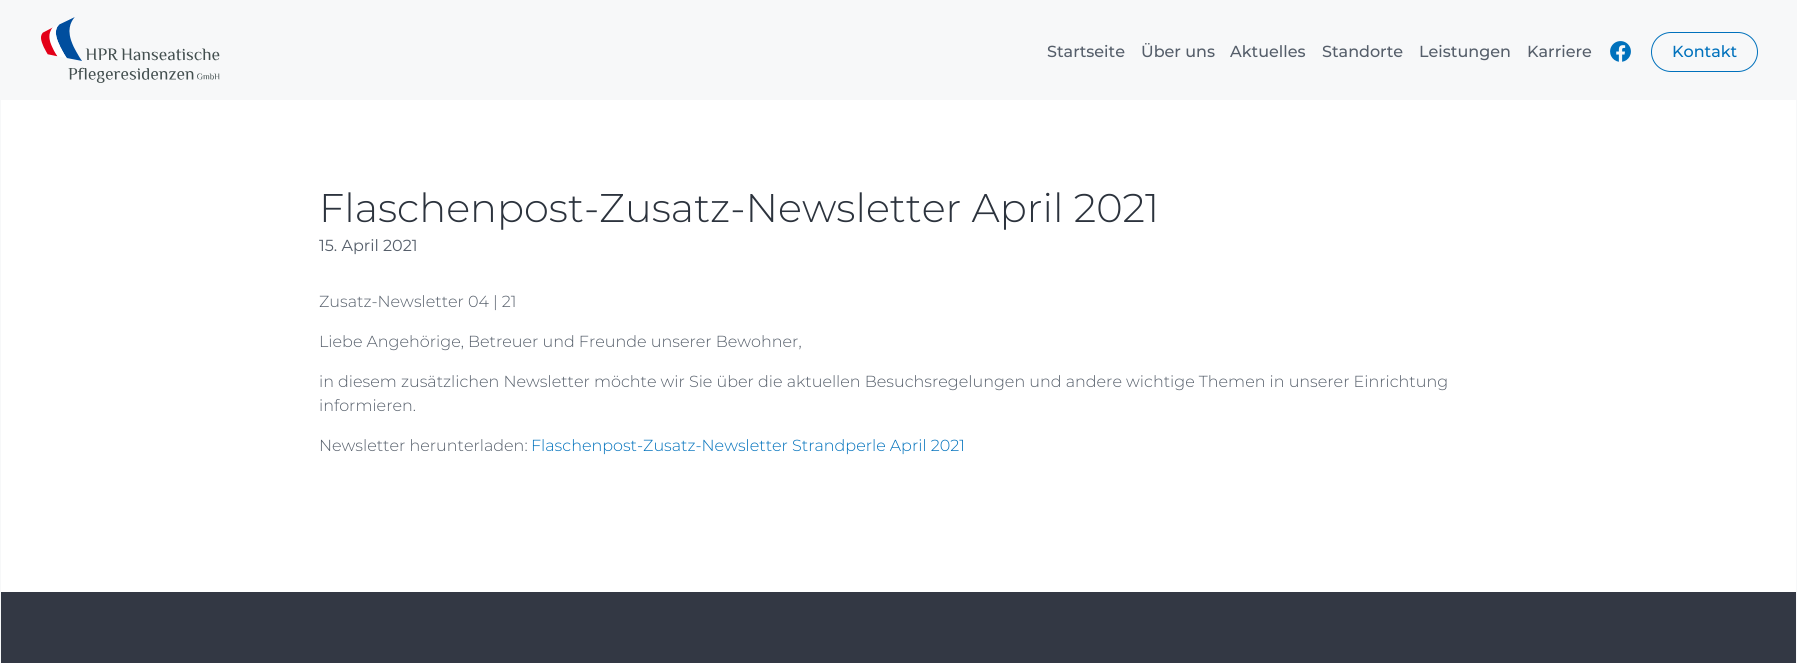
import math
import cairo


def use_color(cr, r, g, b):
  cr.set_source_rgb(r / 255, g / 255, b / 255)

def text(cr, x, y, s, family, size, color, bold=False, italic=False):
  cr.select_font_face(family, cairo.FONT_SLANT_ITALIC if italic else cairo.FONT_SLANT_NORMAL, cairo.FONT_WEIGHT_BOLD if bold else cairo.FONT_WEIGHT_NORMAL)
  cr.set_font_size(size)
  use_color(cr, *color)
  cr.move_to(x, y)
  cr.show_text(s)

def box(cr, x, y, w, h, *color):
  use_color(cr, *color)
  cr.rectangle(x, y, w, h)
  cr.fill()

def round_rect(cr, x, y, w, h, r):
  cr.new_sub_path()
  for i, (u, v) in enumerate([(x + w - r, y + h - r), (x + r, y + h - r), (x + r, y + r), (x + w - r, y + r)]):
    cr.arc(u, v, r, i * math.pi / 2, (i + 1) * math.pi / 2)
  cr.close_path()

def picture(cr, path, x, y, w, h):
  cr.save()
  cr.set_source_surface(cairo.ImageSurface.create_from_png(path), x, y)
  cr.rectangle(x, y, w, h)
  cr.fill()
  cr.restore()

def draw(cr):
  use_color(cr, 255, 255, 255)
  cr.paint()
  box(cr, 1796, 100, 1, 563, 247, 248, 249)
  box(cr, 0, 0, 1, 663, 247, 248, 249)
  box(cr, 1, 0, 1796, 100, 247, 248, 249)
  picture(cr, "img_01.png", 41, 17, 179, 66)
  picture(cr, "img_02.png", 1610, 41, 21, 21)
  round_rect(cr, 1651.5, 32.5, 106, 39, 19.5)
  use_color(cr, 0, 113, 188)
  cr.set_line_width(1)
  cr.stroke()
  box(cr, 1, 592, 1795, 71, 51, 56, 68)
  text(cr, 1047, 57, "Startseite", "Montserrat Medium", 16, (85, 94, 106))
  text(cr, 1141, 57, "Über uns", "Montserrat Medium", 16, (85, 94, 106))
  text(cr, 1230, 57, "Aktuelles", "Montserrat Medium", 16, (85, 94, 106))
  text(cr, 1322, 57, "Standorte", "Montserrat Medium", 16, (85, 94, 106))
  text(cr, 1419, 57, "Leistungen", "Montserrat Medium", 16, (85, 94, 106))
  text(cr, 1527, 57, "Karriere", "Montserrat Medium", 16, (85, 94, 106))
  text(cr, 1672, 57, "Kontakt", "Montserrat Medium", 16, (0, 113, 188))
  text(cr, 319, 222, "Flaschenpost-Zusatz-Newsletter April 2021", "Montserrat Light", 40, (44, 51, 61))
  text(cr, 319, 251, "15. April 2021", "Montserrat", 16, (85, 94, 106))
  text(cr, 319, 307, "Zusatz-Newsletter 04 | 21", "Montserrat Light", 16, (85, 94, 106))
  text(cr, 319, 347, "Liebe Angehörige, Betreuer und Freunde unserer Bewohner,", "Montserrat Light", 16, (85, 94, 106))
  text(cr, 319, 387, "in diesem zusätzlichen Newsletter möchte wir Sie über die aktuellen Besuchsregelungen und andere wichtige Themen in unserer Einrichtung", "Montserrat Light", 16, (85, 94, 106))
  text(cr, 319, 411, "informieren.", "Montserrat Light", 16, (85, 94, 106))
  text(cr, 319, 451, "Newsletter herunterladen:", "Montserrat Light", 16, (85, 94, 106))
  text(cr, 531, 451, "Flaschenpost-Zusatz-Newsletter Strandperle April 2021", "Montserrat Light", 16, (0, 113, 188))


surface = cairo.ImageSurface(cairo.FORMAT_RGB24, 1797, 663)
cr = cairo.Context(surface)
options = cairo.FontOptions()
options.set_hint_metrics(cairo.HINT_METRICS_OFF)
options.set_hint_style(cairo.HINT_STYLE_NONE)
cr.set_font_options(options)
cr.set_miter_limit(4)
draw(cr)
surface.write_to_png("out.png")
